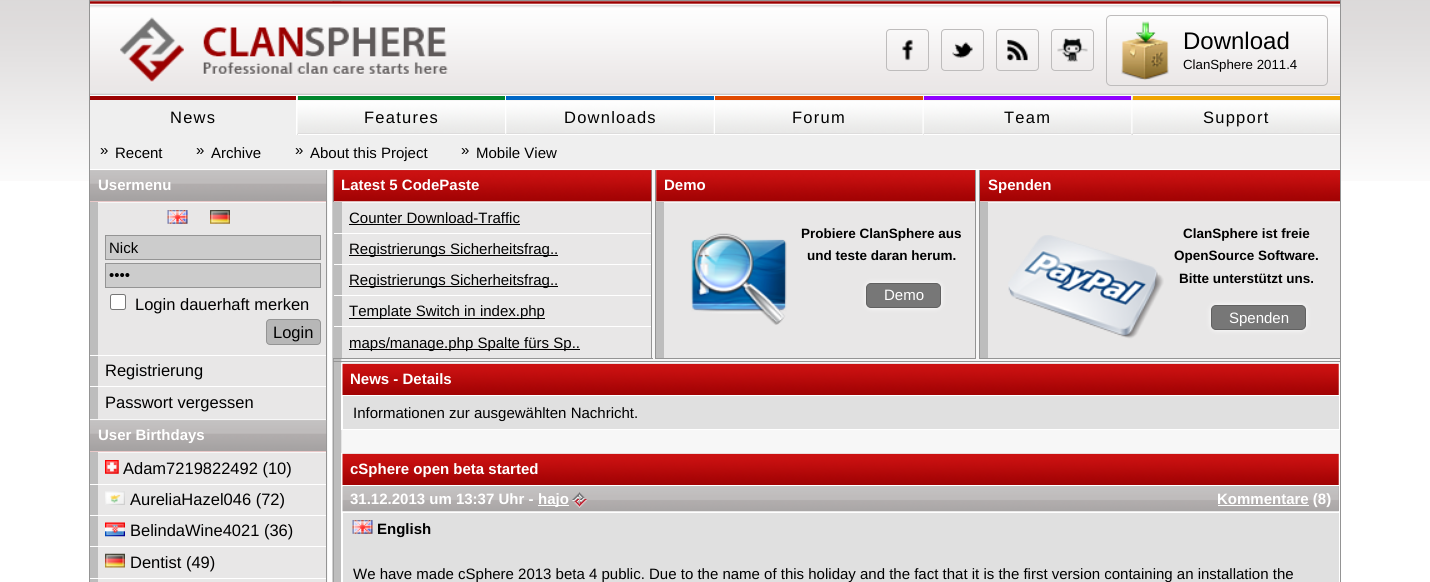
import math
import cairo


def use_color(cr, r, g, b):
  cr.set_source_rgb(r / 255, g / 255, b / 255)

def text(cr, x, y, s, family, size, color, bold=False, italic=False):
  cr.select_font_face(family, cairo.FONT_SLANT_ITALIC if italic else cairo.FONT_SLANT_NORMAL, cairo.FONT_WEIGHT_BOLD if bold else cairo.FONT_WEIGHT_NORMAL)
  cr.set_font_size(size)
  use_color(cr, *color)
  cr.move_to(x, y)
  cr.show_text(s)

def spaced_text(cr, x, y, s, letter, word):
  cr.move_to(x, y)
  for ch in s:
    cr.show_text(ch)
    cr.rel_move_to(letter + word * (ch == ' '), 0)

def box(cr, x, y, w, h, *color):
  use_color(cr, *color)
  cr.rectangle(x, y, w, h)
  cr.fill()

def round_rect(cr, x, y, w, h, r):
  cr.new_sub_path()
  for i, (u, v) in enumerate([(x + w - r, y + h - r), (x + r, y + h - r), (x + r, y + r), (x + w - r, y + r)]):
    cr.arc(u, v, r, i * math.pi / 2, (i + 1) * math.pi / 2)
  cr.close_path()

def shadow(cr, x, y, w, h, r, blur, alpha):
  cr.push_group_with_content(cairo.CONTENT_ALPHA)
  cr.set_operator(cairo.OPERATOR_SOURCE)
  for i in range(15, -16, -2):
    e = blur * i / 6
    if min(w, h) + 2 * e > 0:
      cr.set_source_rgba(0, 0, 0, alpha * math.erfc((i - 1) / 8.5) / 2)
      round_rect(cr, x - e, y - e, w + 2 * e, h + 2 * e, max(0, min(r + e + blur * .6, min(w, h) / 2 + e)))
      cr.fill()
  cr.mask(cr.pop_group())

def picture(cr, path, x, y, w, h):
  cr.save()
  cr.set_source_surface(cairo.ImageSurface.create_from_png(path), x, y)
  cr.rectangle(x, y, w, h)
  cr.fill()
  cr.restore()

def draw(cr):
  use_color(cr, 255, 255, 255)
  cr.paint()
  picture(cr, "img_01.png", 0, 0, 1430, 181)
  box(cr, 342, 1, 998, 452, 247, 247, 247)
  picture(cr, "img_02.png", 90, 1, 252, 581)
  cr.rectangle(89.5, 0.5, 1251, 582)
  use_color(cr, 148, 148, 148)
  cr.set_line_width(1)
  cr.stroke()
  picture(cr, "img_03.png", 90, 1, 1250, 94)
  picture(cr, "img_04.png", 120, 17, 328, 66)
  picture(cr, "img_05.png", 902, 39, 11, 22)
  round_rect(cr, 886.5, 29.5, 42, 41, 3.5)
  use_color(cr, 190, 188, 188)
  cr.stroke()
  picture(cr, "img_06.png", 952, 42, 21, 16)
  round_rect(cr, 941.5, 29.5, 42, 41, 3.5)
  cr.stroke()
  picture(cr, "img_07.png", 1007, 39, 21, 22)
  round_rect(cr, 996.5, 29.5, 42, 41, 3.5)
  cr.stroke()
  picture(cr, "img_08.png", 1057, 38, 31, 24)
  round_rect(cr, 1051.5, 29.5, 42, 41, 3.5)
  cr.stroke()
  picture(cr, "img_09.png", 1121, 21, 48, 59)
  round_rect(cr, 1106.5, 15.5, 221, 70, 4.5)
  cr.stroke()
  box(cr, 332, 95, 1008, 38, 255, 255, 255)
  box(cr, 90, 100, 206, 35, 239, 239, 239)
  box(cr, 90, 96, 206, 4, 155, 0, 0)
  picture(cr, "img_10.png", 297, 96, 208, 39)
  box(cr, 298, 96, 207, 4, 0, 133, 44)
  box(cr, 298, 134, 207, 1, 255, 255, 255)
  picture(cr, "img_11.png", 506, 100, 208, 34)
  box(cr, 506, 96, 208, 4, 0, 103, 198)
  box(cr, 506, 134, 208, 1, 255, 255, 255)
  box(cr, 922, 133, 1, 1, 255, 255, 255)
  picture(cr, "img_12.png", 715, 100, 208, 34)
  box(cr, 715, 96, 208, 4, 225, 74, 0)
  box(cr, 715, 134, 208, 1, 255, 255, 255)
  picture(cr, "img_13.png", 923, 96, 209, 39)
  box(cr, 924, 96, 207, 4, 144, 0, 255)
  box(cr, 924, 134, 207, 1, 255, 255, 255)
  picture(cr, "img_14.png", 1132, 96, 208, 39)
  box(cr, 1133, 96, 207, 4, 240, 164, 0)
  box(cr, 1133, 134, 207, 1, 255, 255, 255)
  box(cr, 90, 135, 1250, 34, 239, 239, 239)
  box(cr, 332, 169, 1008, 1, 255, 255, 255)
  box(cr, 90, 170, 238, 412, 247, 247, 247)
  box(cr, 326, 170, 1, 412, 148, 148, 148)
  picture(cr, "img_15.png", 90, 170, 237, 32)
  box(cr, 98, 203, 228, 216, 232, 231, 231)
  box(cr, 90, 202, 8, 217, 189, 189, 189)
  picture(cr, "img_16.png", 167, 210, 21, 14)
  picture(cr, "img_17.png", 210, 210, 20, 14)
  use_color(cr, 204, 204, 204)
  cr.rectangle(105.5, 235.5, 215, 24)
  cr.fill_preserve()
  use_color(cr, 148, 148, 148)
  cr.stroke()
  use_color(cr, 204, 204, 204)
  cr.rectangle(105.5, 263.5, 215, 24)
  cr.fill_preserve()
  use_color(cr, 148, 148, 148)
  cr.stroke()
  use_color(cr, 255, 255, 255)
  round_rect(cr, 110.5, 294.5, 15, 15, 2)
  cr.fill_preserve()
  use_color(cr, 118, 118, 118)
  cr.stroke()
  use_color(cr, 183, 183, 183)
  round_rect(cr, 266.5, 319.5, 54, 25, 3.5)
  cr.fill_preserve()
  use_color(cr, 148, 148, 148)
  cr.stroke()
  box(cr, 90, 355, 236, 1, 255, 255, 255)
  box(cr, 90, 386, 236, 1, 255, 255, 255)
  picture(cr, "img_15.png", 90, 420, 237, 32)
  box(cr, 98, 453, 228, 129, 232, 231, 231)
  box(cr, 90, 452, 8, 130, 189, 189, 189)
  picture(cr, "img_18.png", 105, 460, 14, 14)
  box(cr, 90, 484, 236, 1, 255, 255, 255)
  picture(cr, "img_19.png", 105, 491, 20, 14)
  box(cr, 90, 515, 236, 1, 255, 255, 255)
  picture(cr, "img_20.png", 105, 522, 20, 15)
  box(cr, 90, 546, 236, 1, 255, 255, 255)
  picture(cr, "img_21.png", 105, 553, 20, 15)
  box(cr, 90, 578, 236, 1, 255, 255, 255)
  box(cr, 334, 170, 8, 188, 247, 247, 247)
  box(cr, 651, 170, 1, 189, 148, 148, 148)
  box(cr, 333, 358, 320, 1, 148, 148, 148)
  box(cr, 333, 170, 1, 189, 148, 148, 148)
  picture(cr, "img_22.png", 333, 170, 319, 32)
  box(cr, 342, 203, 309, 155, 232, 231, 231)
  box(cr, 333, 202, 9, 156, 189, 189, 189)
  box(cr, 349, 224, 171, 1, 0, 0, 0)
  box(cr, 334, 233, 317, 1, 255, 255, 255)
  box(cr, 349, 255, 209, 1, 0, 0, 0)
  box(cr, 334, 264, 317, 1, 255, 255, 255)
  box(cr, 349, 286, 209, 1, 0, 0, 0)
  box(cr, 334, 295, 317, 1, 255, 255, 255)
  box(cr, 349, 318, 196, 1, 0, 0, 0)
  box(cr, 334, 326, 317, 1, 255, 255, 255)
  box(cr, 349, 349, 231, 1, 0, 0, 0)
  box(cr, 975, 170, 1, 189, 148, 148, 148)
  box(cr, 655, 358, 321, 1, 148, 148, 148)
  box(cr, 655, 170, 1, 189, 148, 148, 148)
  picture(cr, "img_23.png", 656, 170, 319, 32)
  box(cr, 664, 203, 311, 155, 232, 231, 231)
  box(cr, 656, 202, 8, 156, 189, 189, 189)
  picture(cr, "img_24.png", 691, 233, 96, 92)
  use_color(cr, 255, 255, 255)
  shadow(cr, 866, 283, 75, 25, 5, 2.5, 1)
  use_color(cr, 119, 119, 119)
  round_rect(cr, 866.5, 283.5, 74, 24, 4.5)
  cr.fill_preserve()
  use_color(cr, 97, 97, 97)
  cr.stroke()
  box(cr, 979, 358, 361, 1, 148, 148, 148)
  box(cr, 979, 170, 1, 189, 148, 148, 148)
  picture(cr, "img_25.png", 980, 170, 360, 32)
  box(cr, 988, 203, 352, 155, 232, 231, 231)
  box(cr, 980, 202, 8, 156, 189, 189, 189)
  picture(cr, "img_26.png", 1008, 235, 156, 104)
  use_color(cr, 255, 255, 255)
  shadow(cr, 1211, 305, 95, 25, 5, 2.5, 1)
  use_color(cr, 119, 119, 119)
  round_rect(cr, 1211.5, 305.5, 94, 24, 4.5)
  cr.fill_preserve()
  use_color(cr, 97, 97, 97)
  cr.stroke()
  box(cr, 333, 361, 1007, 1, 148, 148, 148)
  box(cr, 341, 363, 999, 67, 255, 255, 255)
  picture(cr, "img_27.png", 342, 363, 997, 32)
  box(cr, 343, 396, 996, 33, 224, 224, 224)
  box(cr, 341, 453, 1, 129, 255, 255, 255)
  picture(cr, "img_28.png", 342, 453, 997, 32)
  box(cr, 343, 486, 996, 25, 164, 161, 161)
  picture(cr, "img_29.png", 342, 486, 997, 26)
  box(cr, 538, 505, 31, 1, 255, 255, 255)
  picture(cr, "img_30.png", 572, 492, 15, 16)
  box(cr, 1218, 505, 91, 1, 255, 255, 255)
  box(cr, 343, 513, 996, 69, 224, 224, 224)
  picture(cr, "img_31.png", 352, 520, 21, 14)
  text(cr, 1183, 49, "Download", "Liberation Sans", 24, (0, 0, 0))
  text(cr, 1183, 69, "ClanSphere 2011.4", "Liberation Sans", 13.25, (0, 0, 0))
  cr.set_font_size(16.5)
  spaced_text(cr, 170, 123, "News", 1.25, 0)
  spaced_text(cr, 364, 123, "Features", 1.25, 0)
  spaced_text(cr, 564, 123, "Downloads", 1.25, 0)
  spaced_text(cr, 792, 123, "Forum", 1.25, 0)
  spaced_text(cr, 1004, 123, "Team", 1.25, 0)
  spaced_text(cr, 1203, 123, "Support", 1.25, 0)
  text(cr, 100, 155, "»", "Liberation Sans", 15, (0, 0, 0))
  text(cr, 115, 158, "Recent", "Liberation Sans", 15, (0, 0, 0))
  text(cr, 196, 155, "»", "Liberation Sans", 15, (0, 0, 0))
  text(cr, 211, 158, "Archive", "Liberation Sans", 15, (0, 0, 0))
  text(cr, 295, 155, "»", "Liberation Sans", 15, (0, 0, 0))
  text(cr, 310, 158, "About this Project", "Liberation Sans", 15, (0, 0, 0))
  text(cr, 461, 155, "»", "Liberation Sans", 15, (0, 0, 0))
  text(cr, 476, 158, "Mobile View", "Liberation Sans", 15, (0, 0, 0))
  text(cr, 98, 190, "Usermenu", "Liberation Sans", 15, (255, 255, 255), bold=True)
  text(cr, 109, 253, "Nick", "Liberation Sans", 15, (0, 0, 0))
  text(cr, 109, 280, "••••", "Liberation Sans", 15, (0, 0, 0))
  text(cr, 135, 310, "Login dauerhaft merken", "Liberation Sans", 16.5, (0, 0, 0))
  text(cr, 273, 338, "Login", "Liberation Sans", 16.5, (0, 0, 0))
  text(cr, 105, 376, "Registrierung", "Liberation Sans", 16.5, (0, 0, 0))
  text(cr, 105, 408, "Passwort vergessen", "Liberation Sans", 16.5, (0, 0, 0))
  text(cr, 98, 440, "User Birthdays", "Liberation Sans", 15, (255, 255, 255), bold=True)
  text(cr, 123, 474, "Adam7219822492 (10)", "Liberation Sans", 16.5, (0, 0, 0))
  text(cr, 130, 505, "AureliaHazel046 (72)", "Liberation Sans", 16.5, (0, 0, 0))
  text(cr, 130, 536, "BelindaWine4021 (36)", "Liberation Sans", 16.5, (0, 0, 0))
  text(cr, 130, 568, "Dentist (49)", "Liberation Sans", 16.5, (0, 0, 0))
  text(cr, 341, 190, "Latest 5 CodePaste", "Liberation Sans", 15, (255, 255, 255), bold=True)
  text(cr, 349, 223, "Counter Download-Traffic", "Liberation Sans", 15, (0, 0, 0))
  text(cr, 349, 254, "Registrierungs Sicherheitsfrag..", "Liberation Sans", 15, (0, 0, 0))
  text(cr, 349, 285, "Registrierungs Sicherheitsfrag..", "Liberation Sans", 15, (0, 0, 0))
  text(cr, 349, 316, "Template Switch in index.php", "Liberation Sans", 15, (0, 0, 0))
  text(cr, 349, 348, "maps/manage.php Spalte fürs Sp..", "Liberation Sans", 15, (0, 0, 0))
  text(cr, 664, 190, "Demo", "Liberation Sans", 15, (255, 255, 255), bold=True)
  text(cr, 801, 238, "Probiere ClanSphere aus", "Liberation Sans", 13.5, (0, 0, 0), bold=True)
  text(cr, 807, 260, "und teste daran herum.", "Liberation Sans", 13.5, (0, 0, 0), bold=True)
  text(cr, 884, 300, "Demo", "Liberation Sans", 15, (255, 255, 255))
  text(cr, 988, 190, "Spenden", "Liberation Sans", 15, (255, 255, 255), bold=True)
  text(cr, 1183, 238, "ClanSphere ist freie", "Liberation Sans", 13.5, (0, 0, 0), bold=True)
  text(cr, 1174, 260, "OpenSource Software.", "Liberation Sans", 13.5, (0, 0, 0), bold=True)
  text(cr, 1179, 283, "Bitte unterstützt uns.", "Liberation Sans", 13.5, (0, 0, 0), bold=True)
  text(cr, 1229, 323, "Spenden", "Liberation Sans", 15, (255, 255, 255))
  text(cr, 350, 384, "News - Details", "Liberation Sans", 15, (255, 255, 255), bold=True)
  text(cr, 353, 418, "Informationen zur ausgewählten Nachricht.", "Liberation Sans", 15, (0, 0, 0))
  text(cr, 350, 474, "cSphere open beta started", "Liberation Sans", 15, (255, 255, 255), bold=True)
  text(cr, 350, 504, "31.12.2013 um 13:37 Uhr -", "Liberation Sans", 15, (255, 255, 255), bold=True)
  text(cr, 538, 504, "hajo", "Liberation Sans", 15, (255, 255, 255), bold=True)
  text(cr, 1217, 504, "Kommentare (8)", "Liberation Sans", 15, (255, 255, 255), bold=True)
  text(cr, 377, 534, "English", "Liberation Sans", 15, (0, 0, 0), bold=True)
  text(cr, 353, 579, "We have made cSphere 2013 beta 4 public. Due to the name of this holiday and the fact that it is the first version containing an installation the", "Liberation Sans", 15, (0, 0, 0))


surface = cairo.ImageSurface(cairo.FORMAT_RGB24, 1430, 582)
cr = cairo.Context(surface)
options = cairo.FontOptions()
options.set_hint_metrics(cairo.HINT_METRICS_OFF)
options.set_hint_style(cairo.HINT_STYLE_NONE)
cr.set_font_options(options)
cr.set_miter_limit(4)
draw(cr)
surface.write_to_png("out.png")
